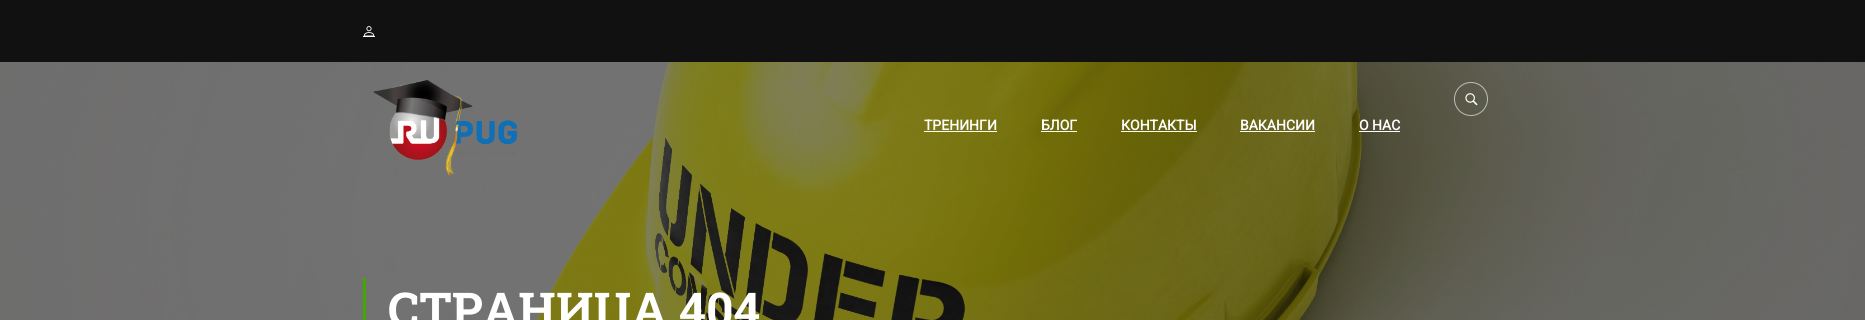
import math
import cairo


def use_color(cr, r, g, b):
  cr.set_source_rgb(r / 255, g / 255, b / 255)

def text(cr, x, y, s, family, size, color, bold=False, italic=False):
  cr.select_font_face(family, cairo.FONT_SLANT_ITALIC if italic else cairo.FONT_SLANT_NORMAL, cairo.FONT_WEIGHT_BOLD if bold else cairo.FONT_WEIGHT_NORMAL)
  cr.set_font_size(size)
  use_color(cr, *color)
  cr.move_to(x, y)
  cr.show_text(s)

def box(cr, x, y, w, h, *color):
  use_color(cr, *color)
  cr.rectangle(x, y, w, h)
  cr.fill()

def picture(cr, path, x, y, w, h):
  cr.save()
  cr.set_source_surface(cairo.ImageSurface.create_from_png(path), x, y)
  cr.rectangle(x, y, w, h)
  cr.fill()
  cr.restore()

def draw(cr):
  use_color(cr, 255, 255, 255)
  cr.paint()
  box(cr, 0, 0, 1865, 62, 17, 17, 17)
  picture(cr, "img_01.png", 363, 26, 12, 10)
  box(cr, 363, 36, 12, 1, 255, 255, 255)
  picture(cr, "img_04.png", 0, 62, 1865, 258)
  picture(cr, "img_02.png", 373, 79, 145, 97)
  cr.arc(1471, 99, 16.5, 0, 2 * math.pi)
  cr.set_source_rgba(1, 1, 1, 0.6)
  cr.set_line_width(1)
  cr.stroke()
  picture(cr, "img_03.png", 1465, 93, 13, 13)
  box(cr, 924, 131, 73, 1, 255, 255, 255)
  box(cr, 1041, 131, 36, 1, 255, 255, 255)
  box(cr, 1121, 131, 76, 1, 255, 255, 255)
  box(cr, 1240, 131, 75, 1, 255, 255, 255)
  box(cr, 1359, 131, 41, 1, 255, 255, 255)
  box(cr, 363, 278, 3, 42, 67, 167, 0)
  text(cr, 924, 130, "ТРЕНИНГИ", "Roboto", 14, (255, 255, 255), bold=True)
  text(cr, 1041, 130, "БЛОГ", "Roboto", 14, (255, 255, 255), bold=True)
  text(cr, 1121, 130, "КОНТАКТЫ", "Roboto", 14, (255, 255, 255), bold=True)
  text(cr, 1240, 130, "ВАКАНСИИ", "Roboto", 14, (255, 255, 255), bold=True)
  text(cr, 1359, 130, "О НАС", "Roboto", 14, (255, 255, 255), bold=True)
  text(cr, 388, 327, "СТРАНИЦА 404", "Roboto Slab", 48, (255, 255, 255), bold=True)


surface = cairo.ImageSurface(cairo.FORMAT_RGB24, 1865, 320)
cr = cairo.Context(surface)
options = cairo.FontOptions()
options.set_hint_metrics(cairo.HINT_METRICS_OFF)
options.set_hint_style(cairo.HINT_STYLE_NONE)
cr.set_font_options(options)
cr.set_miter_limit(4)
draw(cr)
surface.write_to_png("out.png")
